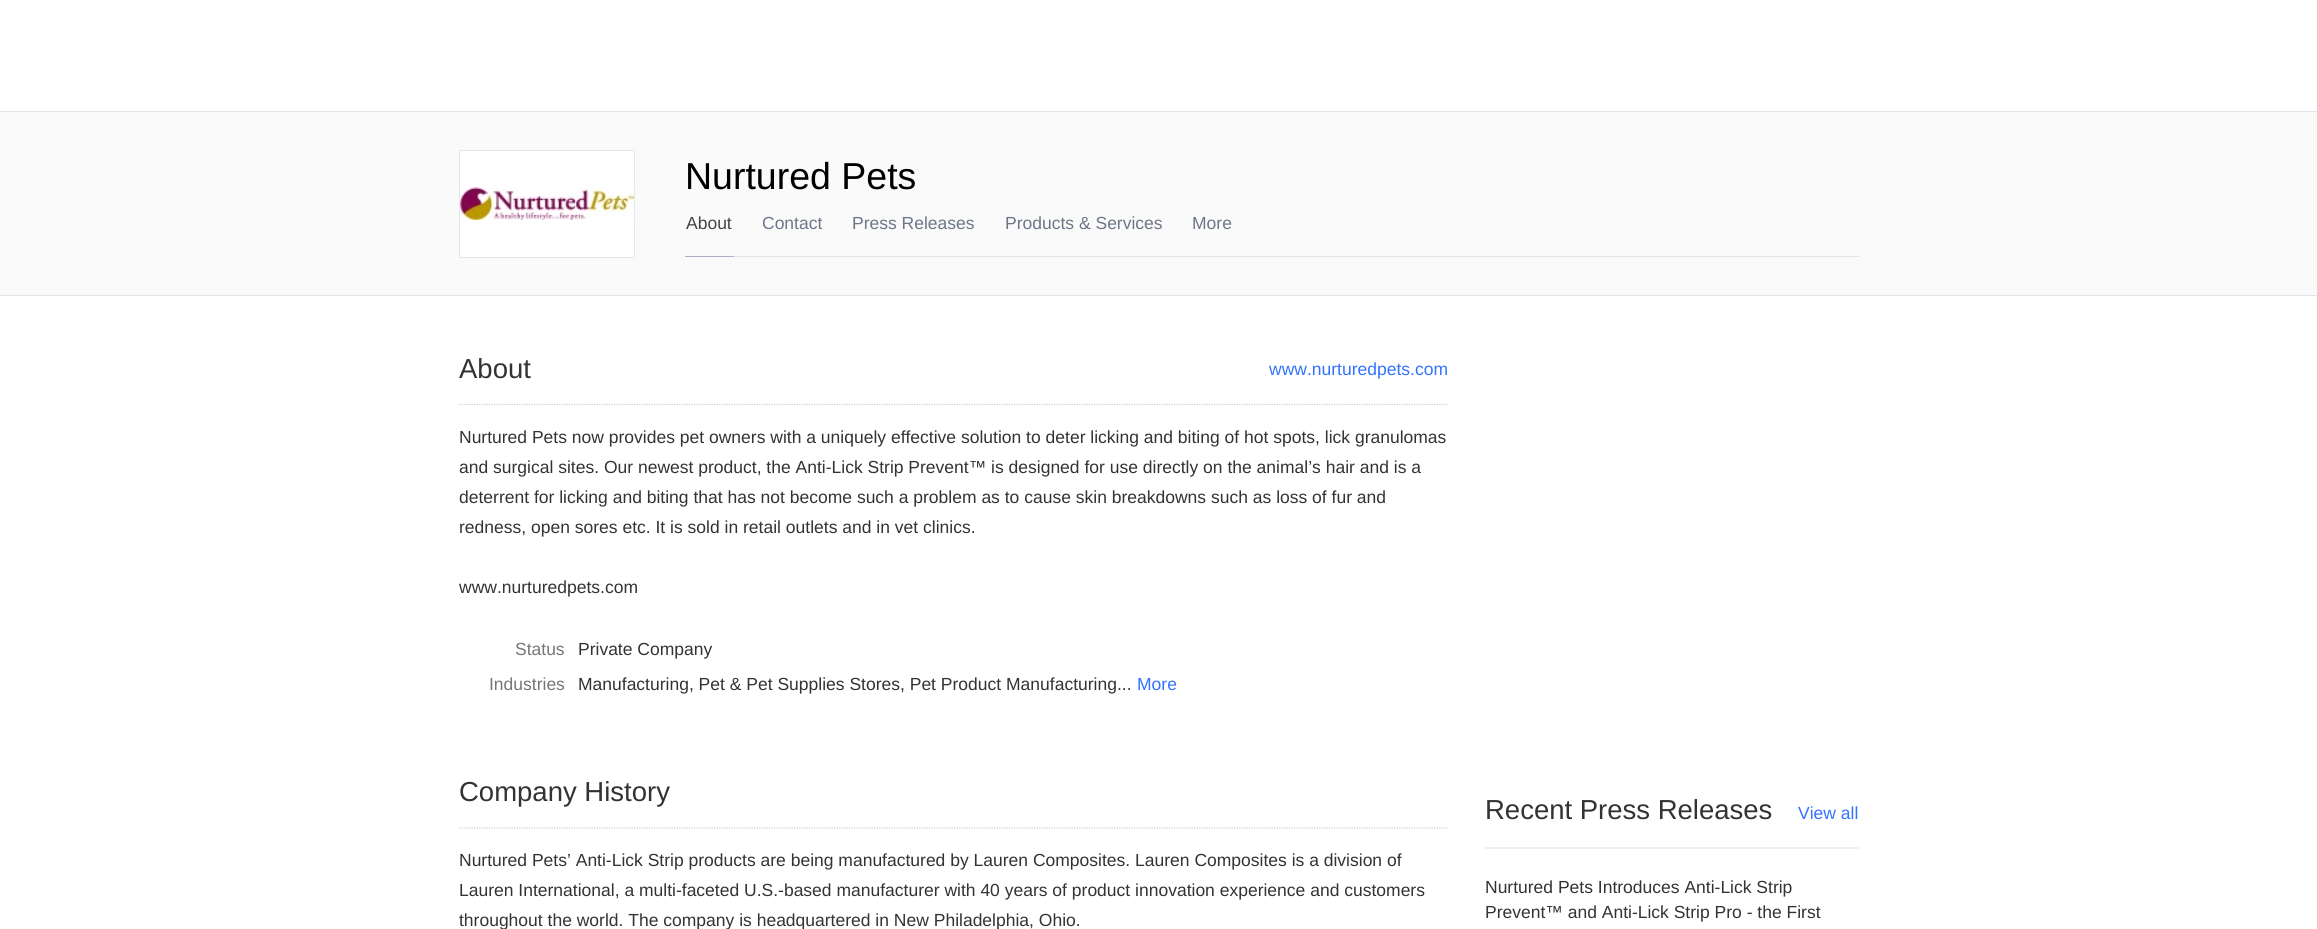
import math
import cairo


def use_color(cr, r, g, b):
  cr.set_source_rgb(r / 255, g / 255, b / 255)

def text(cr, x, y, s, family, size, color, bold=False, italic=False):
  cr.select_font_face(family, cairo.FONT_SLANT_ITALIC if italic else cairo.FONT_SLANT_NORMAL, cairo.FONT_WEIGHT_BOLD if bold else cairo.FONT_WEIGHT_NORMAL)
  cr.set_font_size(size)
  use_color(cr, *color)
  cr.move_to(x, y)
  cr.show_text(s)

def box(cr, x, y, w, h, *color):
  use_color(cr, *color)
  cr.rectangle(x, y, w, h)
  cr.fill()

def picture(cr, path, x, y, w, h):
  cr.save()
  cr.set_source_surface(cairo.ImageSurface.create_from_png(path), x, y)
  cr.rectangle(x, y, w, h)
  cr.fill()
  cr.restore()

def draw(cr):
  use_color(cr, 255, 255, 255)
  cr.paint()
  box(cr, 0, 112, 2317, 183, 250, 250, 250)
  box(cr, 0, 111, 2317, 1, 225, 228, 234)
  box(cr, 0, 295, 2317, 1, 225, 228, 234)
  use_color(cr, 255, 255, 255)
  cr.rectangle(459.5, 150.5, 175, 107)
  cr.fill_preserve()
  use_color(cr, 231, 231, 231)
  cr.set_line_width(1)
  cr.stroke()
  picture(cr, "img_01.png", 460, 187, 174, 33)
  box(cr, 734, 256, 1125, 1, 225, 228, 234)
  box(cr, 685, 256, 49, 1, 170, 178, 193)
  cr.new_path()
  cr.move_to(459, 404.5)
  cr.line_to(1447.5, 404.5)
  use_color(cr, 204, 204, 204)
  cr.set_line_width(1.2)
  cr.set_dash([1.25, 1.25])
  cr.stroke()
  cr.new_path()
  cr.move_to(459, 828)
  cr.line_to(1447.5, 828)
  cr.stroke()
  cr.new_path()
  cr.move_to(1485, 848)
  cr.line_to(1859, 848)
  cr.stroke()
  text(cr, 685, 189, "Nurtured Pets", "Liberation Sans", 37.5, (0, 0, 0))
  text(cr, 686, 229, "About", "Liberation Sans", 17.5, (69, 69, 69))
  text(cr, 762, 229, "Contact", "Liberation Sans", 17.5, (109, 117, 135))
  text(cr, 852, 229, "Press Releases", "Liberation Sans", 17.5, (109, 117, 135))
  text(cr, 1005, 229, "Products & Services", "Liberation Sans", 17.5, (109, 117, 135))
  text(cr, 1192, 229, "More", "Liberation Sans", 17.5, (109, 117, 135))
  text(cr, 459, 378, "About", "Liberation Sans", 27.5, (51, 51, 51))
  text(cr, 1269, 375, "www.nurturedpets.com", "Liberation Sans", 17.5, (51, 114, 255))
  text(cr, 459, 443, "Nurtured Pets now provides pet owners with a uniquely effective solution to deter licking and biting of hot spots, lick granulomas", "Liberation Sans", 17.5, (51, 51, 51))
  text(cr, 459, 473, "and surgical sites. Our newest product, the Anti-Lick Strip Prevent™ is designed for use directly on the animal’s hair and is a", "Liberation Sans", 17.5, (51, 51, 51))
  text(cr, 459, 503, "deterrent for licking and biting that has not become such a problem as to cause skin breakdowns such as loss of fur and", "Liberation Sans", 17.5, (51, 51, 51))
  text(cr, 459, 533, "redness, open sores etc. It is sold in retail outlets and in vet clinics.", "Liberation Sans", 17.5, (51, 51, 51))
  text(cr, 459, 593, "www.nurturedpets.com", "Liberation Sans", 17.5, (51, 51, 51))
  text(cr, 515, 655, "Status", "Liberation Sans", 17.5, (118, 118, 118))
  text(cr, 578, 655, "Private Company", "Liberation Sans", 17.5, (51, 51, 51))
  text(cr, 489, 690, "Industries", "Liberation Sans", 17.5, (118, 118, 118))
  text(cr, 578, 690, "Manufacturing, Pet & Pet Supplies Stores, Pet Product Manufacturing...", "Liberation Sans", 17.5, (51, 51, 51))
  text(cr, 1137, 690, "More", "Liberation Sans", 17.5, (51, 114, 255))
  text(cr, 459, 801, "Company History", "Liberation Sans", 27.5, (51, 51, 51))
  text(cr, 459, 866, "Nurtured Pets’ Anti-Lick Strip products are being manufactured by Lauren Composites. Lauren Composites is a division of", "Liberation Sans", 17.5, (51, 51, 51))
  text(cr, 459, 896, "Lauren International, a multi-faceted U.S.-based manufacturer with 40 years of product innovation experience and customers", "Liberation Sans", 17.5, (51, 51, 51))
  text(cr, 459, 926, "throughout the world. The company is headquartered in New Philadelphia, Ohio.", "Liberation Sans", 17.5, (51, 51, 51))
  text(cr, 1485, 819, "Recent Press Releases", "Liberation Sans", 27.5, (51, 51, 51))
  text(cr, 1798, 819, "View all", "Liberation Sans", 17.5, (51, 114, 255))
  text(cr, 1485, 893, "Nurtured Pets Introduces Anti-Lick Strip", "Liberation Sans", 17.5, (51, 51, 51))
  text(cr, 1485, 918, "Prevent™ and Anti-Lick Strip Pro - the First", "Liberation Sans", 17.5, (51, 51, 51))


surface = cairo.ImageSurface(cairo.FORMAT_RGB24, 2317, 929)
cr = cairo.Context(surface)
options = cairo.FontOptions()
options.set_hint_metrics(cairo.HINT_METRICS_OFF)
options.set_hint_style(cairo.HINT_STYLE_NONE)
cr.set_font_options(options)
cr.set_miter_limit(4)
draw(cr)
surface.write_to_png("out.png")
